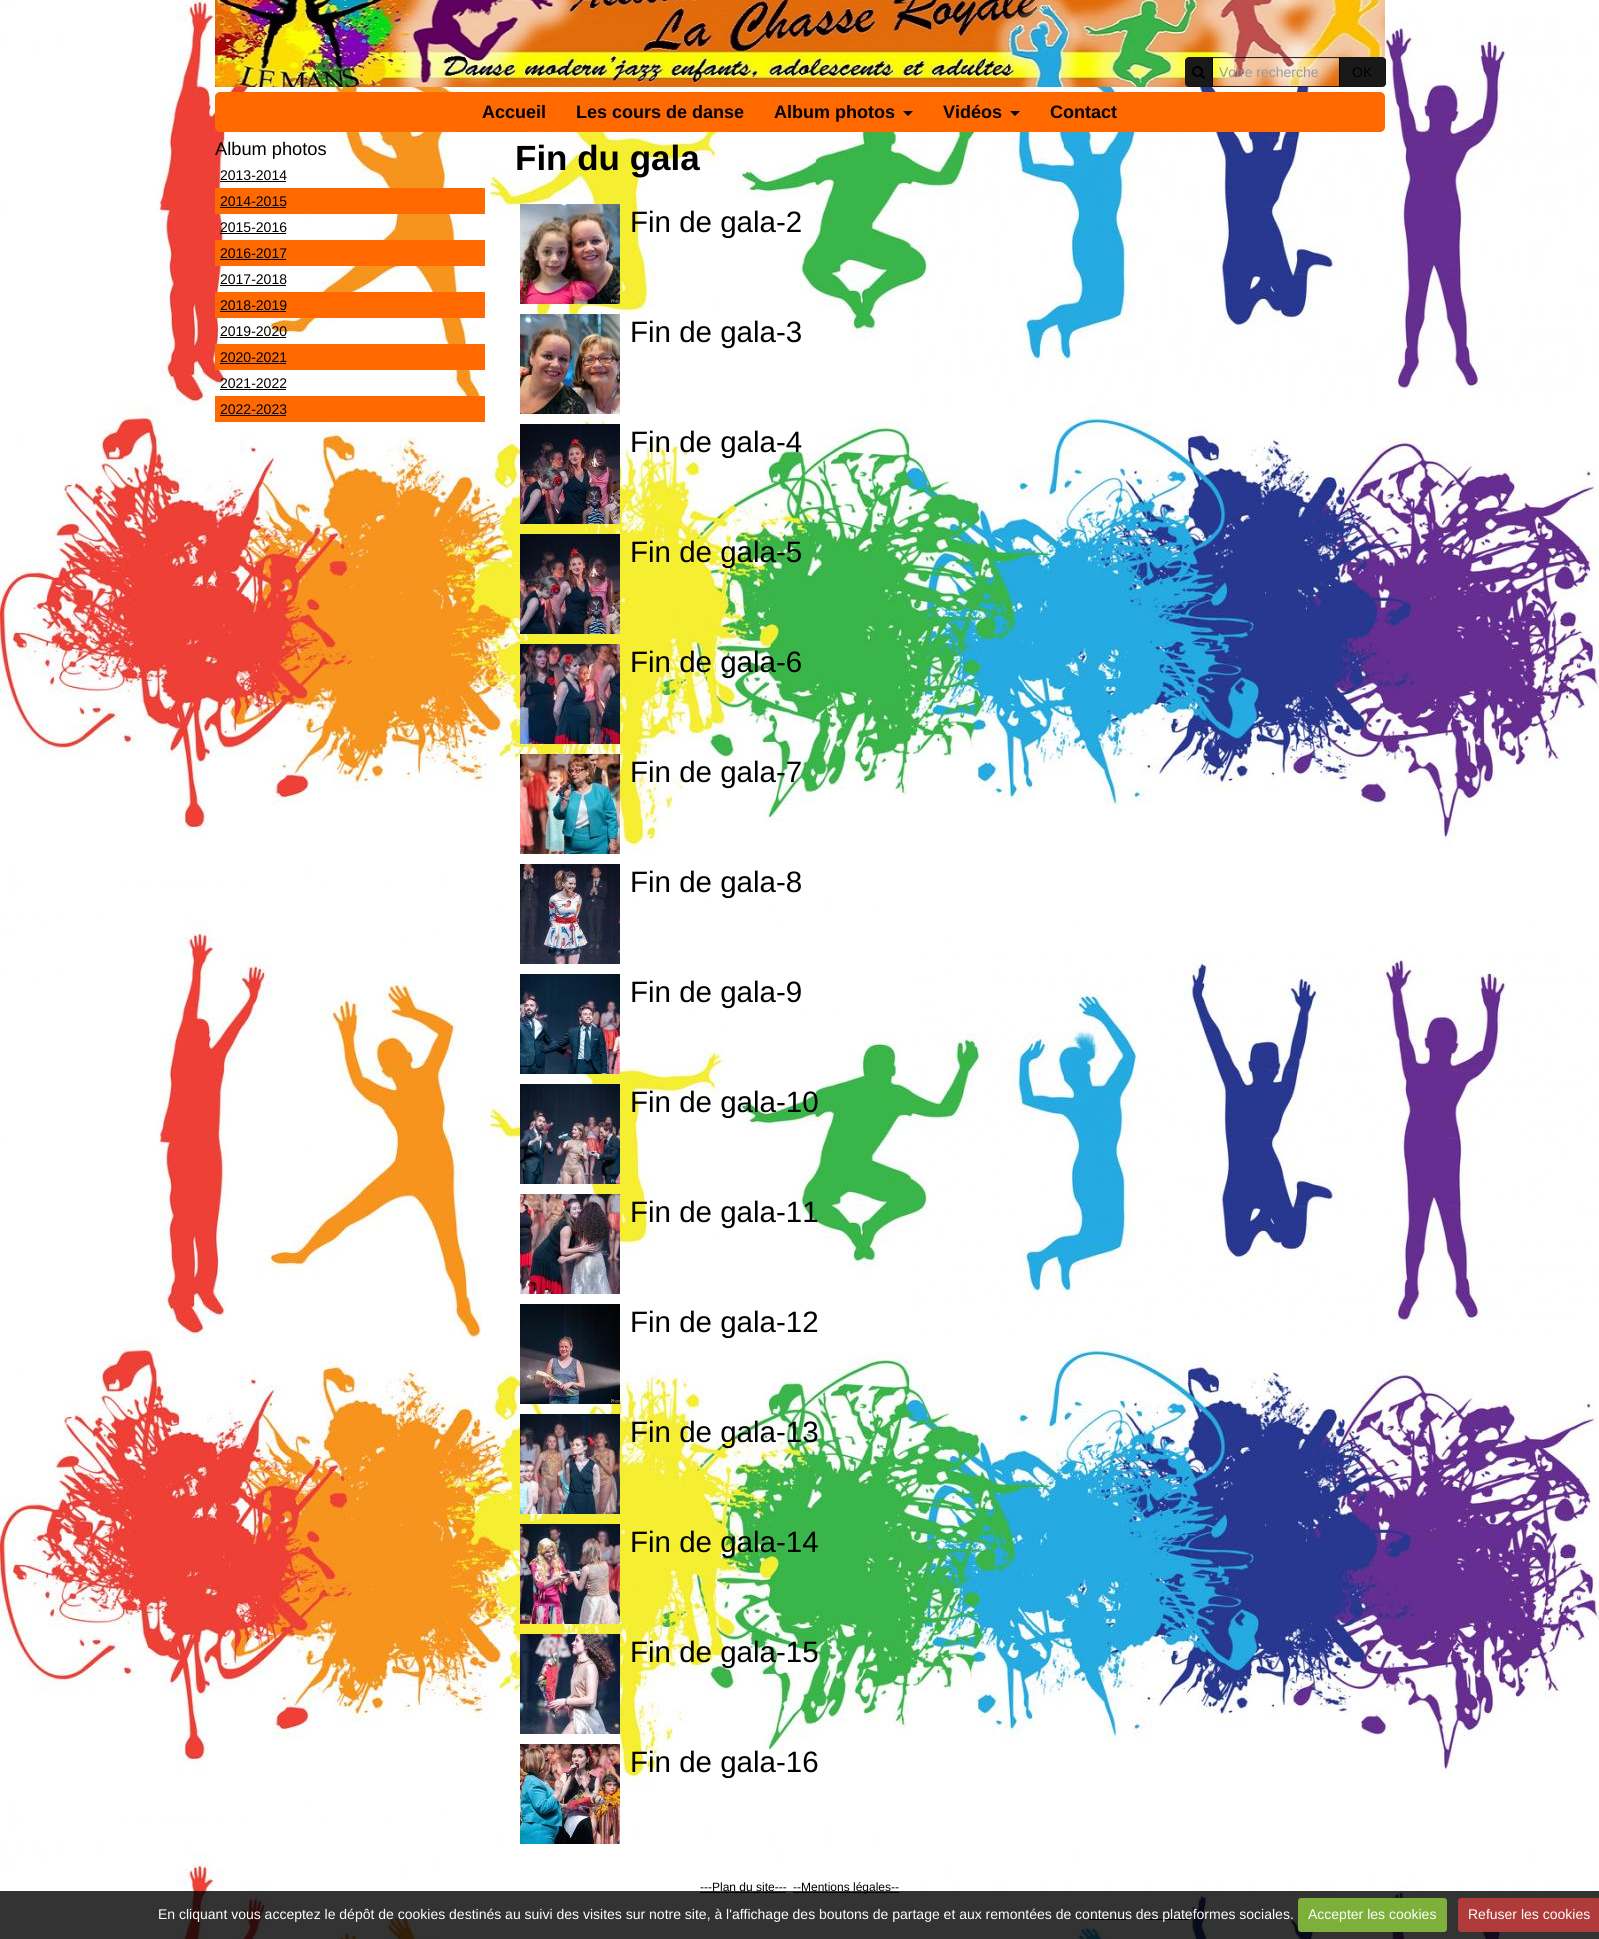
import math
import cairo


def use_color(cr, r, g, b):
  cr.set_source_rgb(r / 255, g / 255, b / 255)

def text(cr, x, y, s, family, size, color, bold=False, italic=False):
  cr.select_font_face(family, cairo.FONT_SLANT_ITALIC if italic else cairo.FONT_SLANT_NORMAL, cairo.FONT_WEIGHT_BOLD if bold else cairo.FONT_WEIGHT_NORMAL)
  cr.set_font_size(size)
  use_color(cr, *color)
  cr.move_to(x, y)
  cr.show_text(s)

def box(cr, x, y, w, h, *color):
  use_color(cr, *color)
  cr.rectangle(x, y, w, h)
  cr.fill()

def round_rect(cr, x, y, w, h, r):
  cr.new_sub_path()
  for i, (u, v) in enumerate([(x + w - r, y + h - r), (x + r, y + h - r), (x + r, y + r), (x + w - r, y + r)]):
    cr.arc(u, v, r, i * math.pi / 2, (i + 1) * math.pi / 2)
  cr.close_path()

def picture(cr, path, x, y, w, h):
  cr.save()
  cr.set_source_surface(cairo.ImageSurface.create_from_png(path), x, y)
  cr.rectangle(x, y, w, h)
  cr.fill()
  cr.restore()

def draw(cr):
  use_color(cr, 255, 255, 255)
  cr.paint()
  picture(cr, "img_01.png", 0, 0, 1599, 1939)
  picture(cr, "img_02.png", 215, 0, 1170, 87)
  use_color(cr, 25, 25, 25)
  cr.new_path()
  cr.move_to(1189, 57)
  cr.line_to(1213, 57)
  cr.line_to(1213, 87)
  cr.line_to(1189, 87)
  cr.curve_to(1187, 87, 1185, 85, 1185, 83)
  cr.line_to(1185, 61)
  cr.curve_to(1185, 59, 1187, 57, 1189, 57)
  cr.close_path()
  cr.fill()
  cr.set_source_rgba(0, 0, 0, 0.1)
  cr.new_path()
  cr.move_to(1189, 57)
  cr.curve_to(1188, 57, 1187, 57.5, 1186, 58)
  cr.line_to(1187, 59)
  cr.curve_to(1187.5, 58.5, 1188, 58, 1189, 58)
  cr.line_to(1212, 58)
  cr.line_to(1213, 57)
  cr.close_path()
  cr.fill()
  use_color(cr, 22, 22, 22)
  cr.new_path()
  cr.move_to(1213, 57)
  cr.line_to(1212, 58)
  cr.line_to(1212, 86)
  cr.line_to(1213, 87)
  cr.close_path()
  cr.fill()
  cr.set_source_rgba(0, 0, 0, 0.25)
  cr.new_path()
  cr.move_to(1213, 87)
  cr.line_to(1212, 86)
  cr.line_to(1189, 86)
  cr.curve_to(1188, 86, 1187.5, 85.5, 1187, 85)
  cr.line_to(1186, 86)
  cr.curve_to(1187, 86.5, 1188, 87, 1189, 87)
  cr.close_path()
  cr.fill()
  cr.set_source_rgba(0, 0, 0, 0.1)
  cr.new_path()
  cr.move_to(1185, 61)
  cr.line_to(1185, 83)
  cr.curve_to(1185, 84, 1185.5, 85, 1186, 86)
  cr.line_to(1187, 85)
  cr.curve_to(1186.5, 84.5, 1186, 84, 1186, 83)
  cr.line_to(1186, 61)
  cr.curve_to(1186, 60, 1186.5, 59.5, 1187, 59)
  cr.line_to(1186, 58)
  cr.curve_to(1185.5, 59, 1185, 60, 1185, 61)
  cr.close_path()
  cr.fill()
  picture(cr, "img_03.png", 1192, 66, 13, 13)
  cr.set_source_rgba(0, 0, 0, 0.07)
  cr.rectangle(1213, 58, 126, 1)
  cr.fill()
  use_color(cr, 25, 25, 25)
  cr.new_path()
  cr.move_to(1339, 57)
  cr.line_to(1382, 57)
  cr.curve_to(1384, 57, 1386, 59, 1386, 61)
  cr.line_to(1386, 83)
  cr.curve_to(1386, 85, 1384, 87, 1382, 87)
  cr.line_to(1339, 87)
  cr.close_path()
  cr.fill()
  cr.save()
  cr.new_path()
  cr.move_to(1339, 57)
  cr.line_to(1382, 57)
  cr.curve_to(1384, 57, 1386, 59, 1386, 61)
  cr.line_to(1386, 83)
  cr.curve_to(1386, 85, 1384, 87, 1382, 87)
  cr.line_to(1339, 87)
  cr.close_path()
  cr.clip()
  box(cr, 1339, 58, 47, 28, 25, 25, 25)
  cr.restore()
  cr.set_source_rgba(0, 0, 0, 0.1)
  cr.new_path()
  cr.move_to(1339, 57)
  cr.line_to(1340, 58)
  cr.line_to(1375, 58)
  cr.curve_to(1380, 58, 1383, 58, 1384, 59)
  cr.line_to(1385, 58)
  cr.curve_to(1383, 57, 1380, 57, 1375, 57)
  cr.close_path()
  cr.fill()
  cr.new_path()
  cr.move_to(1386, 84)
  cr.line_to(1385, 86)
  cr.line_to(1384, 85)
  cr.curve_to(1385, 84.5, 1385, 83.5, 1385, 82.5)
  cr.line_to(1385, 72)
  cr.line_to(1385, 61.5)
  cr.curve_to(1385, 60.5, 1385, 59.5, 1384, 59)
  cr.line_to(1385, 58)
  cr.line_to(1386, 60)
  cr.close_path()
  cr.fill()
  cr.set_source_rgba(0, 0, 0, 0.25)
  cr.new_path()
  cr.move_to(1375, 87)
  cr.curve_to(1380, 87, 1383, 87, 1385, 86)
  cr.line_to(1384, 85)
  cr.curve_to(1383, 86, 1380, 86, 1375, 86)
  cr.line_to(1340, 86)
  cr.line_to(1339, 87)
  cr.close_path()
  cr.fill()
  cr.rectangle(1212.5, 57.5, 127, 29)
  cr.set_source_rgba(0, 0, 0, 0.81)
  cr.set_line_width(1)
  cr.stroke()
  use_color(cr, 255, 105, 0)
  round_rect(cr, 215, 92, 1170, 40, 5)
  cr.fill()
  use_color(cr, 0, 0, 0)
  cr.new_path()
  cr.move_to(903, 111)
  cr.line_to(913, 111)
  cr.line_to(908, 116)
  cr.close_path()
  cr.fill()
  cr.new_path()
  cr.move_to(1010, 111)
  cr.line_to(1020, 111)
  cr.line_to(1015, 116)
  cr.close_path()
  cr.fill()
  box(cr, 220, 181, 66, 1, 0, 0, 0)
  box(cr, 215, 188, 270, 26, 255, 105, 0)
  box(cr, 220, 207, 66, 1, 0, 0, 0)
  box(cr, 220, 233, 66, 1, 0, 0, 0)
  box(cr, 215, 240, 270, 26, 255, 105, 0)
  box(cr, 220, 259, 66, 1, 0, 0, 0)
  box(cr, 220, 285, 66, 1, 0, 0, 0)
  box(cr, 215, 292, 270, 26, 255, 105, 0)
  box(cr, 220, 311, 66, 1, 0, 0, 0)
  box(cr, 220, 337, 66, 1, 0, 0, 0)
  box(cr, 215, 344, 270, 26, 255, 105, 0)
  box(cr, 220, 363, 66, 1, 0, 0, 0)
  box(cr, 220, 389, 66, 1, 0, 0, 0)
  box(cr, 215, 396, 270, 26, 255, 105, 0)
  box(cr, 220, 415, 66, 1, 0, 0, 0)
  picture(cr, "img_04.png", 520, 204, 100, 100)
  picture(cr, "img_05.png", 520, 314, 100, 100)
  picture(cr, "img_06.png", 520, 424, 100, 100)
  picture(cr, "img_07.png", 520, 534, 100, 100)
  picture(cr, "img_08.png", 520, 644, 100, 100)
  picture(cr, "img_09.png", 520, 754, 100, 100)
  picture(cr, "img_10.png", 520, 864, 100, 100)
  picture(cr, "img_11.png", 520, 974, 100, 100)
  picture(cr, "img_12.png", 520, 1084, 100, 100)
  picture(cr, "img_13.png", 520, 1194, 100, 100)
  picture(cr, "img_14.png", 520, 1304, 100, 100)
  picture(cr, "img_15.png", 520, 1414, 100, 100)
  picture(cr, "img_16.png", 520, 1524, 100, 100)
  picture(cr, "img_17.png", 520, 1634, 100, 100)
  picture(cr, "img_18.png", 520, 1744, 100, 100)
  box(cr, 700, 1892, 86, 1, 0, 0, 0)
  box(cr, 793, 1892, 106, 1, 0, 0, 0)
  box(cr, 1089, 1919, 37, 1, 0, 0, 0)
  box(cr, 1146, 1919, 43, 1, 0, 0, 0)
  text(cr, 1219, 77, "Votre recherche", "Liberation Sans", 14, (153, 153, 153))
  text(cr, 1352, 77, "OK", "Liberation Sans", 14, (0, 0, 0))
  text(cr, 482, 118, "Accueil", "Liberation Sans", 18, (0, 0, 0), bold=True)
  text(cr, 576, 118, "Les cours de danse", "Liberation Sans", 18, (0, 0, 0), bold=True)
  text(cr, 774, 118, "Album photos", "Liberation Sans", 18, (0, 0, 0), bold=True)
  text(cr, 943, 118, "Vidéos", "Liberation Sans", 18, (0, 0, 0), bold=True)
  text(cr, 1050, 118, "Contact", "Liberation Sans", 18, (0, 0, 0), bold=True)
  text(cr, 215, 155, "Album photos", "Liberation Sans", 18.25, (0, 0, 0))
  text(cr, 220, 180, "2013-2014", "Liberation Sans", 14, (0, 0, 0))
  text(cr, 220, 206, "2014-2015", "Liberation Sans", 14, (0, 0, 0))
  text(cr, 220, 232, "2015-2016", "Liberation Sans", 14, (0, 0, 0))
  text(cr, 220, 258, "2016-2017", "Liberation Sans", 14, (0, 0, 0))
  text(cr, 220, 284, "2017-2018", "Liberation Sans", 14, (0, 0, 0))
  text(cr, 220, 310, "2018-2019", "Liberation Sans", 14, (0, 0, 0))
  text(cr, 220, 336, "2019-2020", "Liberation Sans", 14, (0, 0, 0))
  text(cr, 220, 362, "2020-2021", "Liberation Sans", 14, (0, 0, 0))
  text(cr, 220, 388, "2021-2022", "Liberation Sans", 14, (0, 0, 0))
  text(cr, 220, 414, "2022-2023", "Liberation Sans", 14, (0, 0, 0))
  text(cr, 515, 170, "Fin du gala", "Liberation Sans", 35, (0, 0, 0), bold=True)
  text(cr, 630, 232, "Fin de gala-2", "Liberation Sans", 29.5, (0, 0, 0))
  text(cr, 630, 342, "Fin de gala-3", "Liberation Sans", 29.5, (0, 0, 0))
  text(cr, 630, 452, "Fin de gala-4", "Liberation Sans", 29.5, (0, 0, 0))
  text(cr, 630, 562, "Fin de gala-5", "Liberation Sans", 29.5, (0, 0, 0))
  text(cr, 630, 672, "Fin de gala-6", "Liberation Sans", 29.5, (0, 0, 0))
  text(cr, 630, 782, "Fin de gala-7", "Liberation Sans", 29.5, (0, 0, 0))
  text(cr, 630, 892, "Fin de gala-8", "Liberation Sans", 29.5, (0, 0, 0))
  text(cr, 630, 1002, "Fin de gala-9", "Liberation Sans", 29.5, (0, 0, 0))
  text(cr, 630, 1112, "Fin de gala-10", "Liberation Sans", 29.5, (0, 0, 0))
  text(cr, 630, 1222, "Fin de gala-11", "Liberation Sans", 29.5, (0, 0, 0))
  text(cr, 630, 1332, "Fin de gala-12", "Liberation Sans", 29.5, (0, 0, 0))
  text(cr, 630, 1442, "Fin de gala-13", "Liberation Sans", 29.5, (0, 0, 0))
  text(cr, 630, 1552, "Fin de gala-14", "Liberation Sans", 29.5, (0, 0, 0))
  text(cr, 630, 1662, "Fin de gala-15", "Liberation Sans", 29.5, (0, 0, 0))
  text(cr, 630, 1772, "Fin de gala-16", "Liberation Sans", 29.5, (0, 0, 0))
  text(cr, 700, 1891, "---Plan du site---", "Liberation Sans", 12, (0, 0, 0))
  text(cr, 793, 1891, "--Mentions légales--", "Liberation Sans", 12, (0, 0, 0))
  cr.set_source_rgba(0, 0, 0, 0.8)
  cr.rectangle(0, 1891, 1599, 48)
  cr.fill()
  text(cr, 158, 1919, "En cliquant vous acceptez le dépôt de cookies destinés au suivi des visites sur notre site, à l'affichage des boutons de partage et aux remontées de contenus des plateformes sociales.", "Liberation Sans", 14, (255, 255, 255))
  use_color(cr, 125, 175, 59)
  round_rect(cr, 1298, 1898, 149, 34, 3)
  cr.fill()
  text(cr, 1308, 1919, "Accepter les cookies", "Liberation Sans", 14, (255, 255, 255))
  use_color(cr, 175, 59, 59)
  round_rect(cr, 1458, 1898, 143, 34, 3)
  cr.fill()
  text(cr, 1468, 1919, "Refuser les cookies", "Liberation Sans", 14, (255, 255, 255))


surface = cairo.ImageSurface(cairo.FORMAT_RGB24, 1599, 1939)
cr = cairo.Context(surface)
options = cairo.FontOptions()
options.set_hint_metrics(cairo.HINT_METRICS_OFF)
options.set_hint_style(cairo.HINT_STYLE_NONE)
cr.set_font_options(options)
cr.set_miter_limit(4)
draw(cr)
surface.write_to_png("out.png")
